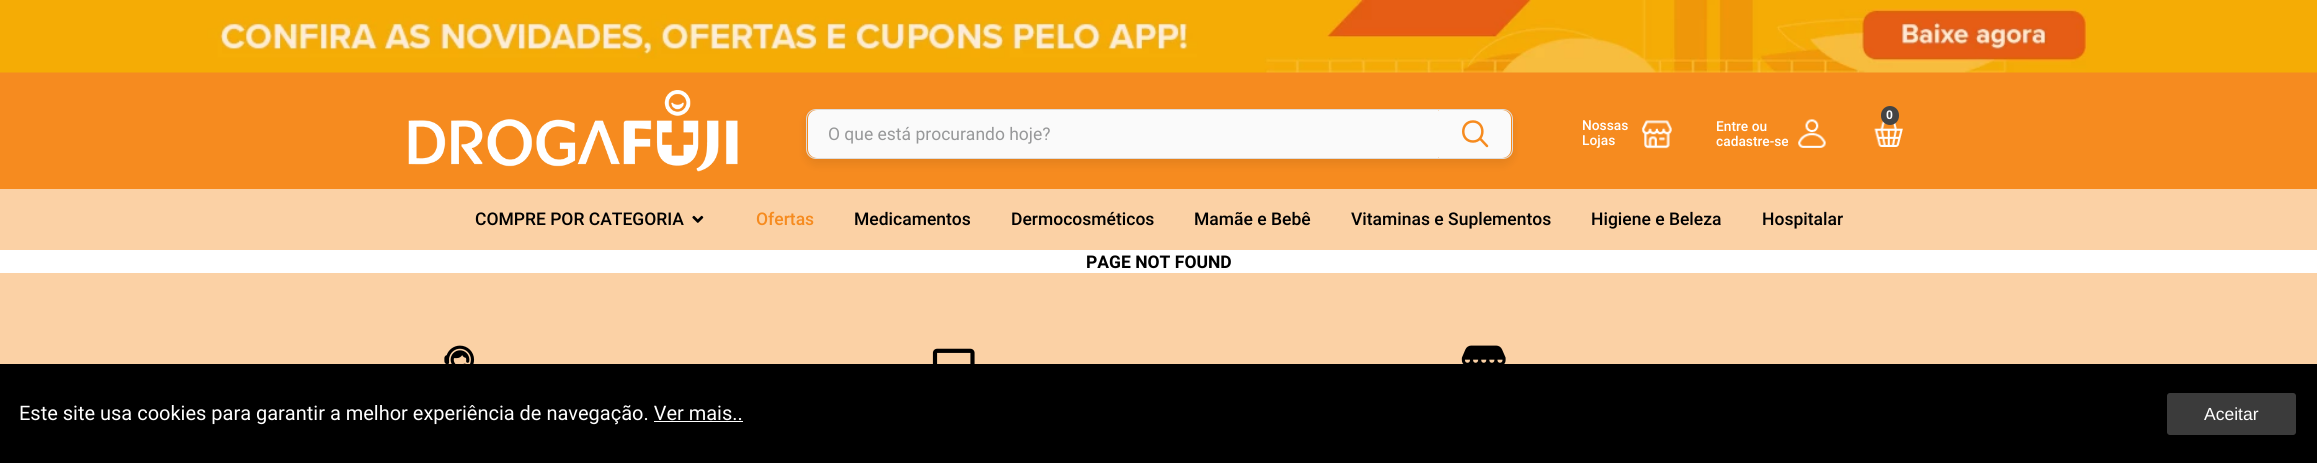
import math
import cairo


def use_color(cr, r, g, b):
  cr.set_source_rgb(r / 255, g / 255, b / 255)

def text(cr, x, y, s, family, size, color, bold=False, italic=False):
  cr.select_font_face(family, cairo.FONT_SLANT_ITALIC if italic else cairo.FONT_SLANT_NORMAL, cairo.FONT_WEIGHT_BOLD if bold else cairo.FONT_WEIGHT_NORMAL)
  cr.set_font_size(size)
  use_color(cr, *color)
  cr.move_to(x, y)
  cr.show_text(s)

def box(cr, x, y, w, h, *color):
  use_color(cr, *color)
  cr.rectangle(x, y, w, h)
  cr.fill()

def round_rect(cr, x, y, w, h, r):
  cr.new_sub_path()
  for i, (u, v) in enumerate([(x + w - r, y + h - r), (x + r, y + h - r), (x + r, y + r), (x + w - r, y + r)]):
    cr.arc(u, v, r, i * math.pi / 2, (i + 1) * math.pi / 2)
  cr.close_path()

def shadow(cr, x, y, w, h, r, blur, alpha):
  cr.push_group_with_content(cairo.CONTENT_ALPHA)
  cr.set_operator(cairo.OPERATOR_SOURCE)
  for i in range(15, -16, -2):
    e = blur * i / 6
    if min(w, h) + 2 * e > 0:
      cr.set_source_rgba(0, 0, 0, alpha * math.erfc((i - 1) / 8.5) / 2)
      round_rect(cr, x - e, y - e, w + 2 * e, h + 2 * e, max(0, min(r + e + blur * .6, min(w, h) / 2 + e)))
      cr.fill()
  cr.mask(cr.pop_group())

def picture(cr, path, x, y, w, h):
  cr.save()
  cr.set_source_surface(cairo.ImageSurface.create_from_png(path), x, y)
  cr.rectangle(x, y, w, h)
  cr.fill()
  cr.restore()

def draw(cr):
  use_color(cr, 255, 255, 255)
  cr.paint()
  box(cr, 0, 0, 2317, 189, 246, 139, 31)
  picture(cr, "img_01.png", 0, 0, 2317, 73)
  picture(cr, "img_02.png", 408, 90, 330, 82)
  picture(cr, "img_03.png", 1874, 120, 29, 27)
  use_color(cr, 68, 68, 68)
  round_rect(cr, 1881, 106, 18, 19, 9)
  cr.fill()
  cr.save()
  cr.set_fill_rule(cairo.FILL_RULE_EVEN_ODD)
  cr.new_path()
  cr.move_to(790, 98)
  cr.line_to(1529, 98)
  cr.line_to(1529, 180)
  cr.line_to(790, 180)
  cr.close_path()
  cr.move_to(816, 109)
  cr.line_to(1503, 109)
  cr.curve_to(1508.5, 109, 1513, 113.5, 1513, 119)
  cr.line_to(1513, 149)
  cr.curve_to(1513, 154.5, 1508.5, 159, 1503, 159)
  cr.line_to(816, 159)
  cr.curve_to(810.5, 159, 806, 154.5, 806, 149)
  cr.line_to(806, 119)
  cr.curve_to(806, 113.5, 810.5, 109, 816, 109)
  cr.close_path()
  cr.clip()
  use_color(cr, 0, 0, 0)
  shadow(cr, 806, 114, 707, 50, 10, 5, 0.08)
  cr.restore()
  round_rect(cr, 806.5, 109.5, 706, 49, 9.5)
  use_color(cr, 221, 221, 221)
  cr.set_line_width(1)
  cr.stroke()
  use_color(cr, 250, 250, 250)
  cr.new_path()
  cr.move_to(817, 110)
  cr.line_to(1438, 110)
  cr.curve_to(1438.5, 110, 1439, 110.5, 1439, 111)
  cr.line_to(1439, 157)
  cr.curve_to(1439, 157.5, 1438.5, 158, 1438, 158)
  cr.line_to(817, 158)
  cr.curve_to(812, 158, 808, 154, 808, 149)
  cr.line_to(808, 119)
  cr.curve_to(808, 114, 812, 110, 817, 110)
  cr.close_path()
  cr.fill()
  cr.new_path()
  cr.move_to(1439, 110)
  cr.line_to(1502, 110)
  cr.curve_to(1507, 110, 1511, 114, 1511, 119)
  cr.line_to(1511, 149)
  cr.curve_to(1511, 154, 1507, 158, 1502, 158)
  cr.line_to(1439, 158)
  cr.close_path()
  cr.fill()
  cr.new_path()
  cr.move_to(1473, 141.5)
  cr.curve_to(1485.5, 141.5, 1485.5, 121.5, 1473, 121.5)
  cr.curve_to(1460, 121.5, 1460, 141.5, 1473, 141.5)
  cr.close_path()
  cr.move_to(1487, 146)
  cr.line_to(1480, 138.5)
  use_color(cr, 246, 139, 31)
  cr.set_line_width(2.5)
  cr.set_line_cap(cairo.LINE_CAP_ROUND)
  cr.set_line_join(cairo.LINE_JOIN_ROUND)
  cr.stroke()
  picture(cr, "img_04.png", 1641, 120, 31, 29)
  picture(cr, "img_05.png", 1798, 119, 28, 29)
  box(cr, 0, 189, 2317, 61, 251, 209, 165)
  picture(cr, "img_06.png", 692, 215, 12, 8)
  box(cr, 0, 273, 2317, 91, 251, 209, 165)
  picture(cr, "img_07.png", 444, 345, 31, 19)
  picture(cr, "img_08.png", 932, 348, 43, 16)
  picture(cr, "img_09.png", 1461, 345, 45, 19)
  box(cr, 0, 364, 2317, 99, 0, 0, 0)
  box(cr, 654, 421, 89, 1, 255, 255, 255)
  use_color(cr, 59, 59, 59)
  round_rect(cr, 2165.5, 391.5, 132, 45, 4.5)
  cr.fill_preserve()
  use_color(cr, 0, 0, 0)
  cr.set_line_width(3)
  cr.set_line_cap(cairo.LINE_CAP_BUTT)
  cr.set_line_join(cairo.LINE_JOIN_MITER)
  cr.stroke()
  text(cr, 1886, 119, "0", "Roboto", 12, (255, 255, 255), bold=True)
  text(cr, 828, 140, "O que está procurando hoje?", "Roboto", 17.5, (151, 152, 153))
  text(cr, 1582, 130, "Nossas", "Roboto Medium", 13.75, (255, 255, 255))
  text(cr, 1582, 145, "Lojas", "Roboto Medium", 13.75, (255, 255, 255))
  text(cr, 1716, 131, "Entre ou", "Roboto Medium", 13.75, (255, 255, 255))
  text(cr, 1716, 146, "cadastre-se", "Roboto Medium", 13.75, (255, 255, 255))
  text(cr, 475, 225, "COMPRE POR CATEGORIA", "Roboto Medium", 17.5, (0, 0, 0))
  text(cr, 756, 225, "Ofertas", "Roboto Medium", 17.5, (246, 139, 31))
  text(cr, 854, 225, "Medicamentos", "Roboto Medium", 17.5, (0, 0, 0))
  text(cr, 1011, 225, "Dermocosméticos", "Roboto Medium", 17.5, (0, 0, 0))
  text(cr, 1194, 225, "Mamãe e Bebê", "Roboto Medium", 17.5, (0, 0, 0))
  text(cr, 1351, 225, "Vitaminas e Suplementos", "Roboto Medium", 17.5, (0, 0, 0))
  text(cr, 1591, 225, "Higiene e Beleza", "Roboto Medium", 17.5, (0, 0, 0))
  text(cr, 1762, 225, "Hospitalar", "Roboto Medium", 17.5, (0, 0, 0))
  text(cr, 1086, 268, "PAGE NOT FOUND", "Roboto", 17.5, (0, 0, 0), bold=True)
  text(cr, 19, 420, "Este site usa cookies para garantir a melhor experiência de navegação. Ver mais..", "Roboto", 20, (255, 255, 255))
  text(cr, 2204, 420, "Aceitar", "Liberation Sans", 17.5, (255, 255, 255))


surface = cairo.ImageSurface(cairo.FORMAT_RGB24, 2317, 463)
cr = cairo.Context(surface)
options = cairo.FontOptions()
options.set_hint_metrics(cairo.HINT_METRICS_OFF)
options.set_hint_style(cairo.HINT_STYLE_NONE)
cr.set_font_options(options)
cr.set_miter_limit(4)
draw(cr)
surface.write_to_png("out.png")
